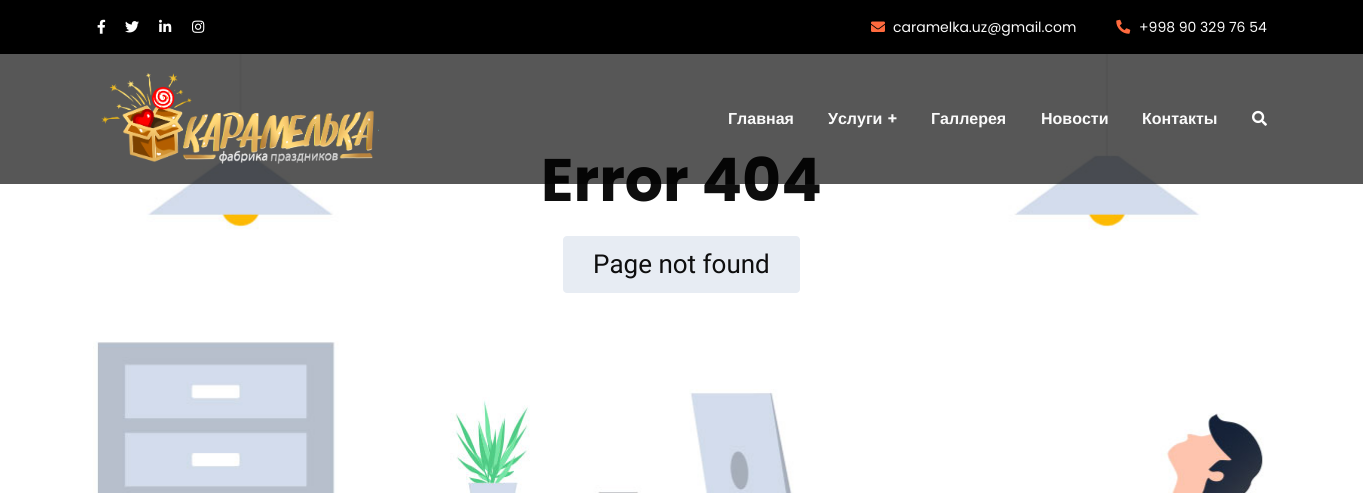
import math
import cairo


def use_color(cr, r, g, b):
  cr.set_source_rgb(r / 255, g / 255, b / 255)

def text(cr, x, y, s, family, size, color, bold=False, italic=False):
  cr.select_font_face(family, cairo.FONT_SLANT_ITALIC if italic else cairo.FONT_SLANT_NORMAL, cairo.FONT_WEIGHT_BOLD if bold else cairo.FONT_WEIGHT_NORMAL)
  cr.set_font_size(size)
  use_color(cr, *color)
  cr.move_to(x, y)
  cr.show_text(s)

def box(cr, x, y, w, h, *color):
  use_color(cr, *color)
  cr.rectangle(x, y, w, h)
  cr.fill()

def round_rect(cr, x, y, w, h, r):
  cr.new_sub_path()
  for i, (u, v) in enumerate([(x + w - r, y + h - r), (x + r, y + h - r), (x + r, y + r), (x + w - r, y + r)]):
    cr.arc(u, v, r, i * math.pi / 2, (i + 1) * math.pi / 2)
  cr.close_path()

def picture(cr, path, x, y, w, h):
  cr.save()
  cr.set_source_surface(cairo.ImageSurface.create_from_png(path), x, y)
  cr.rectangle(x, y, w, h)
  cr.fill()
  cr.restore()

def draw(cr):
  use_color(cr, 255, 255, 255)
  cr.paint()
  box(cr, 0, 0, 1363, 54, 0, 0, 0)
  picture(cr, "img_01.png", 97, 19, 9, 15)
  picture(cr, "img_02.png", 125, 21, 14, 12)
  picture(cr, "img_03.png", 159, 19, 13, 13)
  picture(cr, "img_04.png", 192, 20, 13, 13)
  picture(cr, "img_05.png", 871, 21, 14, 11)
  picture(cr, "img_06.png", 1116, 19, 15, 15)
  picture(cr, "img_09.png", 93, 54, 1171, 439)
  use_color(cr, 231, 236, 243)
  round_rect(cr, 563, 236, 237, 57, 4)
  cr.fill()
  text(cr, 893, 32, "caramelka.uz@gmail.com", "Poppins", 14, (250, 250, 250))
  text(cr, 1139, 32, "+998 90 329 76 54", "Poppins", 14, (250, 250, 250))
  text(cr, 541, 201, "Error 404", "Poppins", 60, (14, 14, 14), bold=True)
  cr.set_source_rgba(0, 0, 0, 0.66)
  cr.rectangle(0, 54, 1363, 130)
  cr.fill()
  picture(cr, "img_07.png", 101, 73, 278, 91)
  text(cr, 1142, 124, "Контакты", "Liberation Sans", 16, (250, 250, 250), bold=True)
  text(cr, 1041, 124, "Новости", "Liberation Sans", 16, (250, 250, 250), bold=True)
  text(cr, 931, 124, "Галлерея", "Liberation Sans", 16, (250, 250, 250), bold=True)
  text(cr, 887, 124, "+", "Poppins SemiBold", 16, (250, 250, 250))
  text(cr, 828, 124, "Услуги", "Liberation Sans", 16, (250, 250, 250), bold=True)
  text(cr, 728, 124, "Главная", "Liberation Sans", 16, (250, 250, 250), bold=True)
  picture(cr, "img_08.png", 1252, 110, 15, 16)
  text(cr, 593, 273, "Page not found", "Roboto", 26, (14, 14, 14))


surface = cairo.ImageSurface(cairo.FORMAT_RGB24, 1363, 493)
cr = cairo.Context(surface)
options = cairo.FontOptions()
options.set_hint_metrics(cairo.HINT_METRICS_OFF)
options.set_hint_style(cairo.HINT_STYLE_NONE)
cr.set_font_options(options)
cr.set_miter_limit(4)
draw(cr)
surface.write_to_png("out.png")
